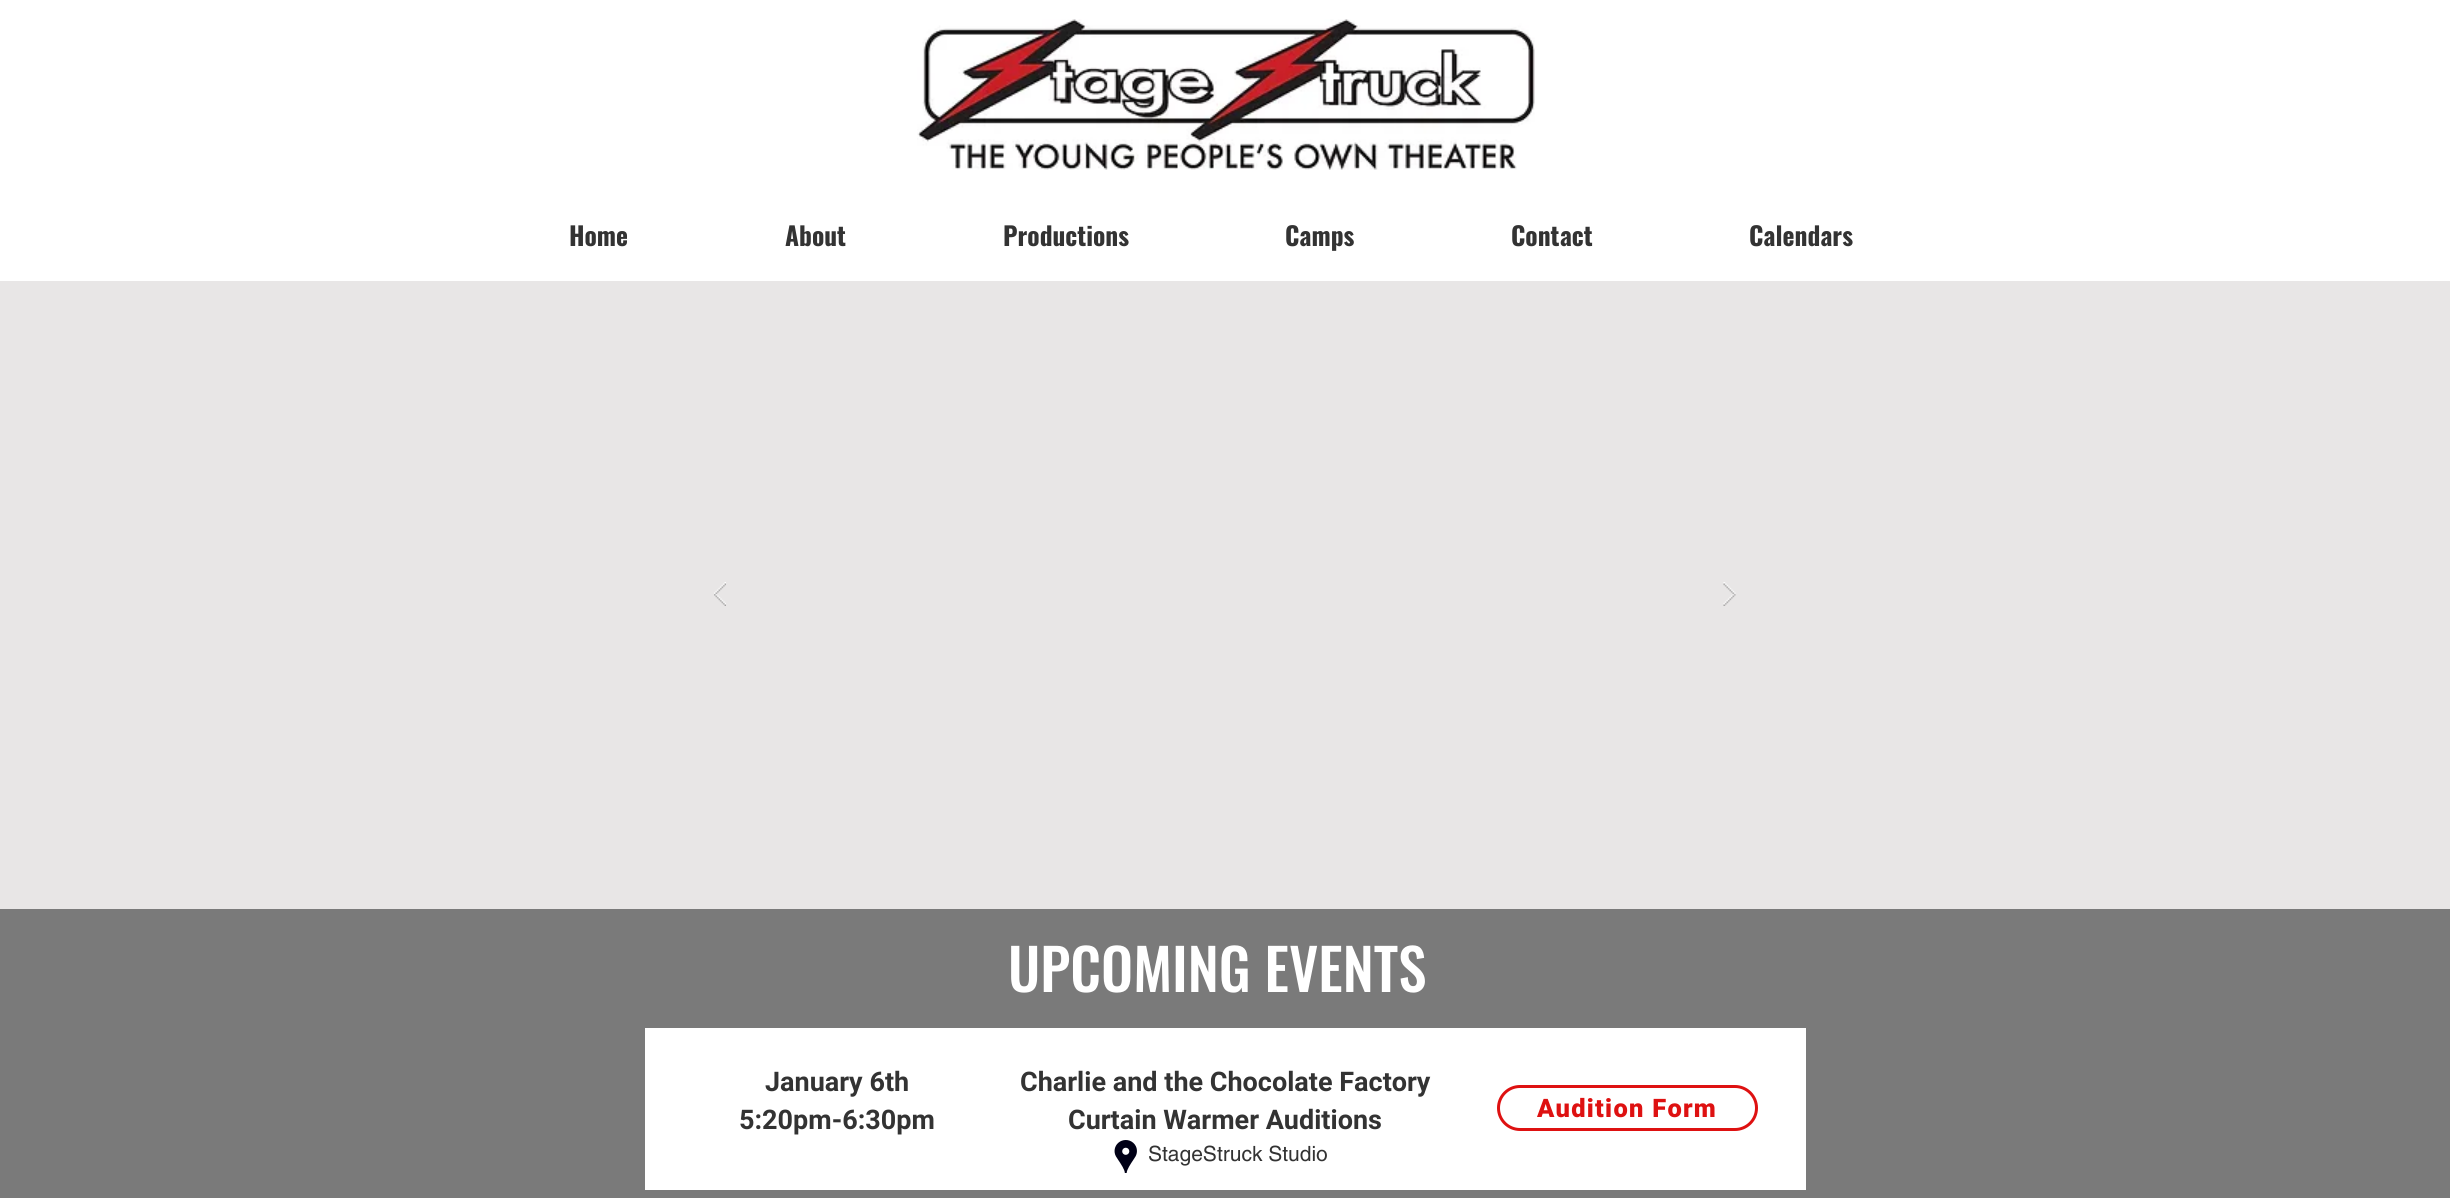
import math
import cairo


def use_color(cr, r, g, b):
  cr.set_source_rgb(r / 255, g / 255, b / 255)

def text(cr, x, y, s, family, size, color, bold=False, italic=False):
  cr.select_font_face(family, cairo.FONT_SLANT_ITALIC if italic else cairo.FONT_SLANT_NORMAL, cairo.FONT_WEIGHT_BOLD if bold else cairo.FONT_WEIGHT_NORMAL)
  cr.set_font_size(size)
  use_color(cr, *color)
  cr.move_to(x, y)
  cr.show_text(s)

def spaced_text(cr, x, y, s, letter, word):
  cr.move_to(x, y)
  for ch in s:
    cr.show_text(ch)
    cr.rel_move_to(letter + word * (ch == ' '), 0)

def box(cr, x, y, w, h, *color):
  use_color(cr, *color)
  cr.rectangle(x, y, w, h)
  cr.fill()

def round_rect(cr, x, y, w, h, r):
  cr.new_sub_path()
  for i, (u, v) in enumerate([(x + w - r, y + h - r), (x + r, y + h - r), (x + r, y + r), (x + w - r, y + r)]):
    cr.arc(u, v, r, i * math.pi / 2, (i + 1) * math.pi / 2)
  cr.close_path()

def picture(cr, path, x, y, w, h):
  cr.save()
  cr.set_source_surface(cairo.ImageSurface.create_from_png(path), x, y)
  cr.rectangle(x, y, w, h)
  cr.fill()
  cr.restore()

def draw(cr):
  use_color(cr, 255, 255, 255)
  cr.paint()
  picture(cr, "img_01.png", 917, 19, 618, 151)
  box(cr, 0, 281, 2450, 628, 232, 230, 230)
  picture(cr, "img_02.png", 714, 582, 12, 24)
  picture(cr, "img_03.png", 1723, 582, 13, 24)
  box(cr, 0, 909, 2450, 289, 122, 122, 122)
  box(cr, 645, 1028, 1161, 162, 255, 255, 255)
  round_rect(cr, 1498.5, 1086.5, 258, 43, 21.5)
  use_color(cr, 222, 17, 17)
  cr.set_line_width(3)
  cr.stroke()
  picture(cr, "img_04.png", 1114, 1140, 23, 33)
  text(cr, 569, 246, "Home", "Oswald", 25.5, (51, 51, 51), bold=True)
  text(cr, 785, 246, "About", "Oswald", 25.5, (51, 51, 51), bold=True)
  text(cr, 1003, 246, "Productions", "Oswald", 25.5, (51, 51, 51), bold=True)
  text(cr, 1285, 246, "Camps", "Oswald", 25.5, (51, 51, 51), bold=True)
  text(cr, 1511, 246, "Contact", "Oswald", 25.5, (51, 51, 51), bold=True)
  text(cr, 1749, 246, "Calendars", "Oswald", 25.5, (51, 51, 51), bold=True)
  text(cr, 1008, 992, "UPCOMING EVENTS", "Oswald Medium", 57, (255, 255, 255))
  text(cr, 765, 1091, "January 6th", "Roboto", 27, (51, 51, 51), bold=True)
  text(cr, 739, 1129, "5:20pm-6:30pm", "Roboto", 27, (51, 51, 51), bold=True)
  text(cr, 1020, 1091, "Charlie and the Chocolate Factory", "Roboto", 27, (51, 51, 51), bold=True)
  text(cr, 1068, 1129, "Curtain Warmer Auditions", "Roboto", 27, (51, 51, 51), bold=True)
  cr.select_font_face("Roboto Black")
  cr.set_font_size(25.5)
  use_color(cr, 222, 17, 17)
  spaced_text(cr, 1537, 1117, "Audition Form", 1.25, 0)
  text(cr, 1148, 1161, "StageStruck Studio", "helvetica", 21, (51, 51, 51))


surface = cairo.ImageSurface(cairo.FORMAT_RGB24, 2450, 1198)
cr = cairo.Context(surface)
options = cairo.FontOptions()
options.set_hint_metrics(cairo.HINT_METRICS_OFF)
options.set_hint_style(cairo.HINT_STYLE_NONE)
cr.set_font_options(options)
cr.set_miter_limit(4)
draw(cr)
surface.write_to_png("out.png")
